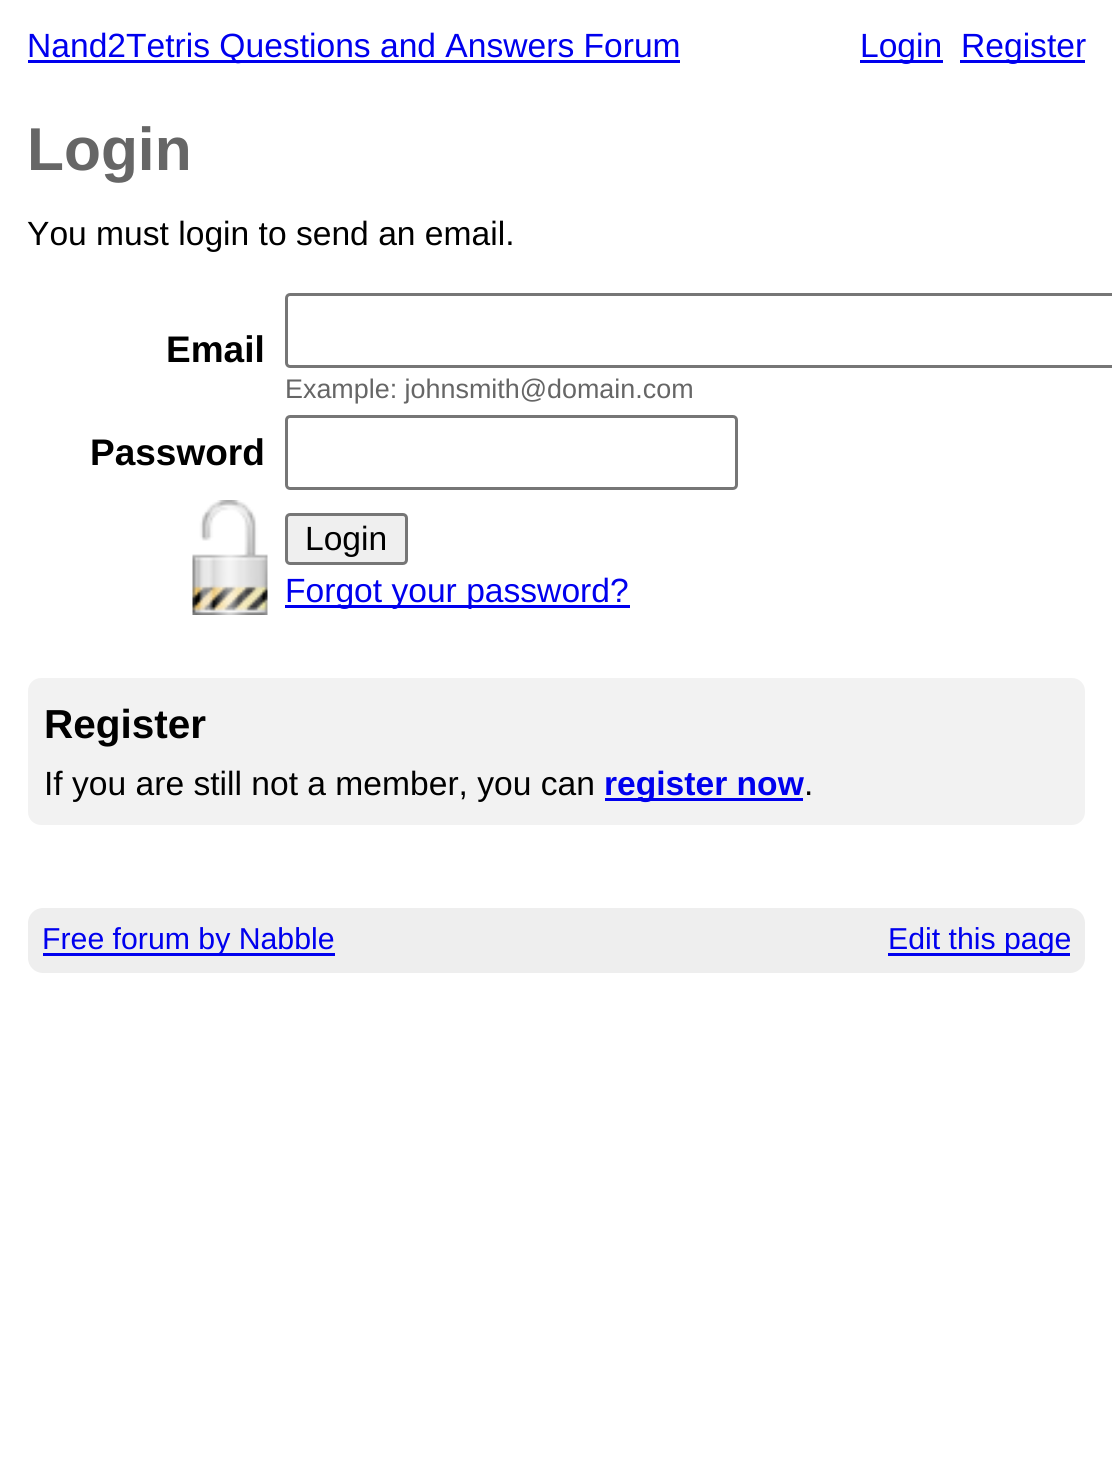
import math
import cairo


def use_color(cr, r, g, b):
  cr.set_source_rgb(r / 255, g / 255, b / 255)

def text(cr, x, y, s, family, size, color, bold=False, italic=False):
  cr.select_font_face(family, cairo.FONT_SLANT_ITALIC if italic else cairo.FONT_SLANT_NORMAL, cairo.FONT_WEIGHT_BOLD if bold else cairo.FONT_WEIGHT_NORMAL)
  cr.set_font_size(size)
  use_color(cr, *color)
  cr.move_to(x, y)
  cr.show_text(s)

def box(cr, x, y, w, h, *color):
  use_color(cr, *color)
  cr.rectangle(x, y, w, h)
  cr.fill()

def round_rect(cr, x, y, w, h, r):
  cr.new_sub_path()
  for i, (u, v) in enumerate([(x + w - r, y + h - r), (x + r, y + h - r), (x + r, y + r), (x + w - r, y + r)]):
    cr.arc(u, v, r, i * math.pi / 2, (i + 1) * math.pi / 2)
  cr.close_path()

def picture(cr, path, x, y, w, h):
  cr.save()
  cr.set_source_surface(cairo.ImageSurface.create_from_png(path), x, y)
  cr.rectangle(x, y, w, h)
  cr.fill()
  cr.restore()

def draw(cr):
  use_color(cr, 255, 255, 255)
  cr.paint()
  box(cr, 28, 60, 652, 3, 0, 0, 238)
  box(cr, 860, 60, 83, 3, 0, 0, 238)
  box(cr, 960, 60, 125, 3, 0, 0, 238)
  round_rect(cr, 286.5, 294.5, 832, 72, 3.5)
  use_color(cr, 118, 118, 118)
  cr.set_line_width(3)
  cr.stroke()
  round_rect(cr, 286.5, 416.5, 450, 72, 3.5)
  cr.stroke()
  picture(cr, "img_01.png", 192, 500, 76, 115)
  use_color(cr, 239, 239, 239)
  round_rect(cr, 286.5, 514.5, 120, 49, 3.5)
  cr.fill_preserve()
  use_color(cr, 118, 118, 118)
  cr.stroke()
  box(cr, 285, 605, 345, 3, 0, 0, 238)
  use_color(cr, 242, 242, 242)
  round_rect(cr, 28, 678, 1057, 147, 13)
  cr.fill()
  box(cr, 605, 798, 198, 3, 0, 0, 238)
  use_color(cr, 238, 238, 238)
  round_rect(cr, 28, 908, 1057, 65, 15)
  cr.fill()
  box(cr, 43, 953, 292, 3, 0, 0, 238)
  box(cr, 888, 953, 182, 3, 0, 0, 238)
  text(cr, 27, 57, "Nand2Tetris Questions and Answers Forum", "Liberation Sans", 33.6, (0, 0, 238))
  text(cr, 860, 57, "Login", "Liberation Sans", 33.6, (0, 0, 238))
  text(cr, 961, 57, "Register", "Liberation Sans", 33.6, (0, 0, 238))
  text(cr, 27, 170, "Login", "Liberation Sans", 60.5, (102, 102, 102), bold=True)
  text(cr, 27, 245, "You must login to send an email.", "Liberation Sans", 33.6, (0, 0, 0))
  text(cr, 166, 362, "Email", "Liberation Sans", 37, (0, 0, 0), bold=True)
  text(cr, 285, 398, "Example: johnsmith@domain.com", "Liberation Sans", 26.9, (102, 102, 102))
  text(cr, 90, 465, "Password", "Liberation Sans", 37, (0, 0, 0), bold=True)
  text(cr, 305, 550, "Login", "Liberation Sans", 33.6, (0, 0, 0))
  text(cr, 285, 602, "Forgot your password?", "Liberation Sans", 33.6, (0, 0, 238))
  text(cr, 44, 738, "Register", "Liberation Sans", 40.5, (0, 0, 0), bold=True)
  text(cr, 44, 795, "If you are still not a member, you can", "Liberation Sans", 33.6, (0, 0, 0))
  text(cr, 604, 795, "register now", "Liberation Sans", 33.6, (0, 0, 238), bold=True)
  text(cr, 804, 795, ".", "Liberation Sans", 33.6, (0, 0, 0))
  text(cr, 42, 949, "Free forum by Nabble", "Liberation Sans", 30.25, (0, 0, 238))
  text(cr, 888, 949, "Edit this page", "Liberation Sans", 30.25, (0, 0, 238))


surface = cairo.ImageSurface(cairo.FORMAT_RGB24, 1112, 1473)
cr = cairo.Context(surface)
options = cairo.FontOptions()
options.set_hint_metrics(cairo.HINT_METRICS_OFF)
options.set_hint_style(cairo.HINT_STYLE_NONE)
cr.set_font_options(options)
cr.set_miter_limit(4)
draw(cr)
surface.write_to_png("out.png")
